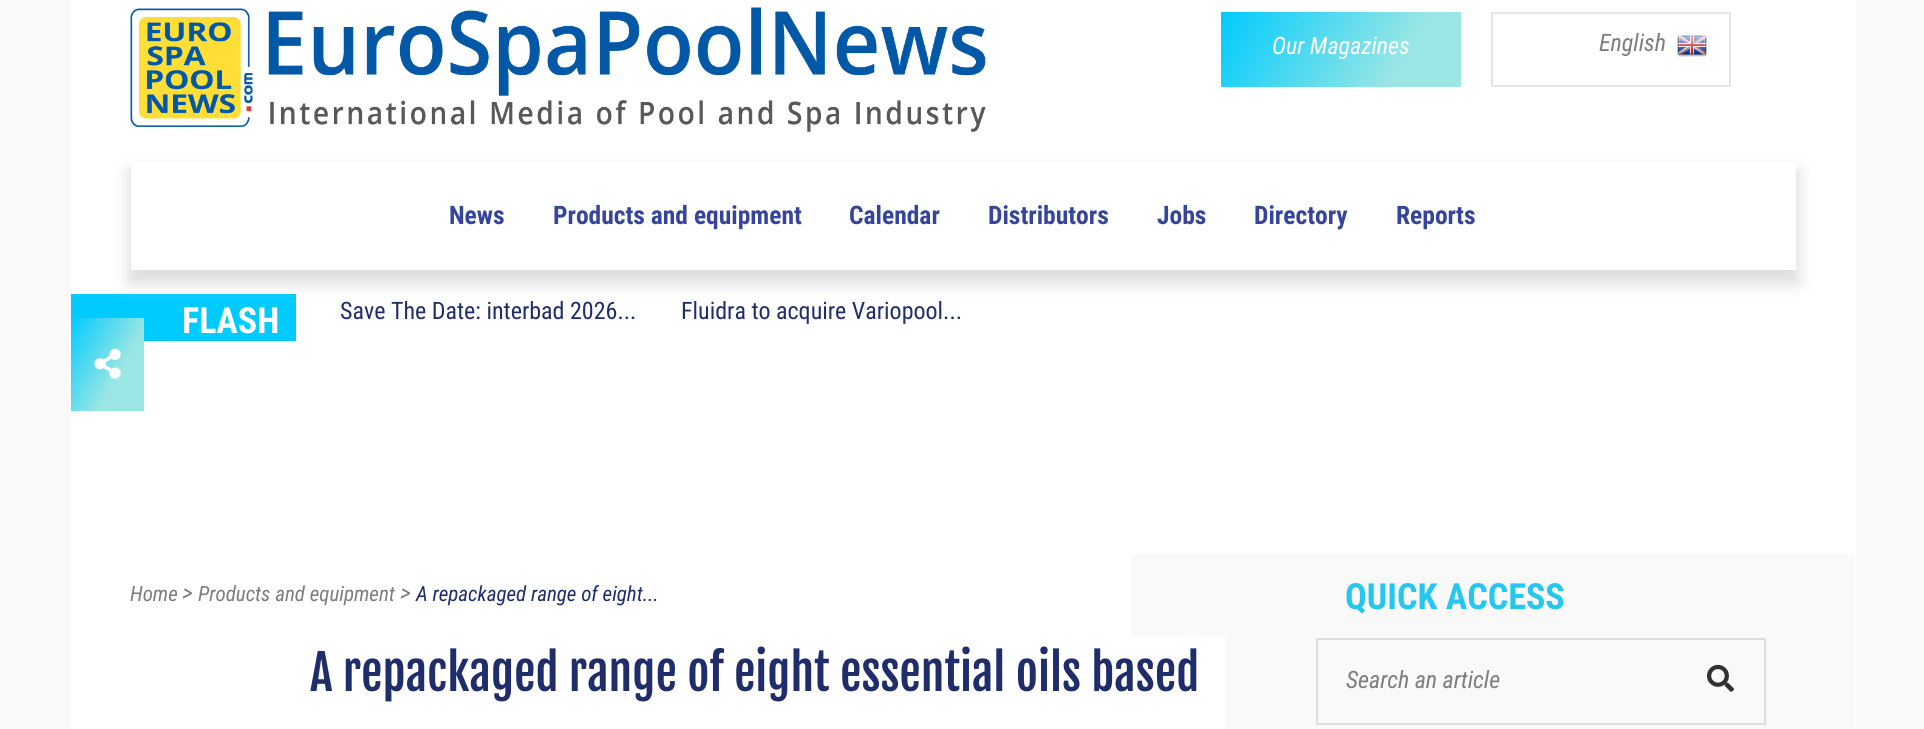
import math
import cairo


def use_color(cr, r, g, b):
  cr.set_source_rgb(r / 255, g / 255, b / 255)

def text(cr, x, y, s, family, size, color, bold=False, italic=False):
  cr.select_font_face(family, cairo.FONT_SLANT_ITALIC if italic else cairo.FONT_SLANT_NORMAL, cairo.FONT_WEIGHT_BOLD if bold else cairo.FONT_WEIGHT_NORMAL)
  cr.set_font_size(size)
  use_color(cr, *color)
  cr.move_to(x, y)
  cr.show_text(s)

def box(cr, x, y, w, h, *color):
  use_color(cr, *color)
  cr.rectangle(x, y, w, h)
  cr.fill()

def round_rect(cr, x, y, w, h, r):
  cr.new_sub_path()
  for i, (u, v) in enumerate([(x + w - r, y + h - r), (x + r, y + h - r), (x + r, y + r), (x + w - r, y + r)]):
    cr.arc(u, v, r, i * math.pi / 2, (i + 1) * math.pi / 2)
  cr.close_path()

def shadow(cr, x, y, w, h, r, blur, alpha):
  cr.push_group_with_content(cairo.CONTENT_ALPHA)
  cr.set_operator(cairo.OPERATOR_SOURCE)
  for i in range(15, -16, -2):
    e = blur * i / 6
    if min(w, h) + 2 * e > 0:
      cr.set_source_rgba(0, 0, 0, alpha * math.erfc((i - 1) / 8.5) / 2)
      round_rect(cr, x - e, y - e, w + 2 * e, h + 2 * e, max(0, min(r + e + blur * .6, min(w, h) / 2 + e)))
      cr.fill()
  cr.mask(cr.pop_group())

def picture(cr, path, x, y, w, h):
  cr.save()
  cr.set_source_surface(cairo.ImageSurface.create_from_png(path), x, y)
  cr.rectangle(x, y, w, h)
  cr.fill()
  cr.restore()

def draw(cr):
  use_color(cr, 249, 249, 249)
  cr.paint()
  box(cr, 71, 0, 1785, 729, 255, 255, 255)
  picture(cr, "img_01.png", 130, 7, 856, 125)
  gradient = cairo.LinearGradient(1265, -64, 1657, 163)
  gradient.add_color_stop_rgba(0, 0, 0.796, 0.996, 1)
  gradient.add_color_stop_rgba(0.4, 0.6, 0.902, 0.894, 1)
  gradient.add_color_stop_rgba(1, 0.6, 0.902, 0.894, 1)
  cr.set_source(gradient)
  cr.rectangle(1221, 12, 240, 75)
  cr.fill()
  cr.rectangle(1492, 13, 238, 73)
  use_color(cr, 229, 229, 229)
  cr.stroke()
  picture(cr, "img_02.png", 1677, 35, 30, 22)
  box(cr, 71, 294, 225, 47, 0, 203, 254)
  cr.save()
  cr.set_fill_rule(cairo.FILL_RULE_EVEN_ODD)
  cr.new_path()
  cr.move_to(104, 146)
  cr.line_to(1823, 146)
  cr.line_to(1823, 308)
  cr.line_to(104, 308)
  cr.close_path()
  cr.move_to(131, 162)
  cr.line_to(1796, 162)
  cr.line_to(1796, 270)
  cr.line_to(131, 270)
  cr.close_path()
  cr.clip()
  use_color(cr, 214, 214, 214)
  shadow(cr, 128, 170, 1671, 114, 0, 7.5, 0.8)
  cr.restore()
  box(cr, 1818, 554, 37, 175, 249, 249, 249)
  gradient = cairo.LinearGradient(69, 321, 219, 408)
  gradient.add_color_stop_rgba(0, 0, 0.796, 0.996, 1)
  gradient.add_color_stop_rgba(0.4, 0.6, 0.902, 0.894, 1)
  gradient.add_color_stop_rgba(1, 0.6, 0.902, 0.894, 1)
  cr.set_source(gradient)
  cr.rectangle(71, 318, 73, 93)
  cr.fill()
  picture(cr, "img_03.png", 94, 348, 27, 31)
  box(cr, 1131, 554, 687, 175, 249, 249, 249)
  box(cr, 1131, 636, 95, 93, 255, 255, 255)
  cr.rectangle(1317, 639, 448, 85)
  use_color(cr, 221, 221, 221)
  cr.stroke()
  picture(cr, "img_04.png", 1707, 664, 27, 28)
  text(cr, 1272, 54, "Our Magazines", "Roboto Condensed", 24, (255, 255, 255), italic=True)
  text(cr, 1599, 51, "English", "Roboto Condensed", 24, (125, 125, 125), italic=True)
  text(cr, 449, 224, "News", "Roboto Condensed", 25.5, (53, 68, 156), bold=True)
  text(cr, 553, 224, "Products and equipment", "Roboto Condensed", 25.5, (53, 68, 156), bold=True)
  text(cr, 849, 224, "Calendar", "Roboto Condensed", 25.5, (53, 68, 156), bold=True)
  text(cr, 988, 224, "Distributors", "Roboto Condensed", 25.5, (53, 68, 156), bold=True)
  text(cr, 1157, 224, "Jobs", "Roboto Condensed", 25.5, (53, 68, 156), bold=True)
  text(cr, 1254, 224, "Directory", "Roboto Condensed", 25.5, (53, 68, 156), bold=True)
  text(cr, 1396, 224, "Reports", "Roboto Condensed", 25.5, (53, 68, 156), bold=True)
  text(cr, 182, 333, "FLASH", "Roboto Condensed", 36, (255, 255, 255), bold=True)
  text(cr, 340, 319, "Save The Date: interbad 2026...", "Roboto Condensed", 24, (31, 45, 107))
  text(cr, 681, 319, "Fluidra to acquire Variopool...", "Roboto Condensed", 24, (31, 45, 107))
  text(cr, 130, 601, "Home", "Roboto Condensed", 21, (125, 125, 125), italic=True)
  text(cr, 182, 601, ">", "Roboto Condensed", 24, (125, 125, 125), italic=True)
  text(cr, 198, 601, "Products and equipment", "Roboto Condensed", 21, (125, 125, 125), italic=True)
  text(cr, 400, 601, ">", "Roboto Condensed", 24, (125, 125, 125), italic=True)
  text(cr, 416, 601, "A repackaged range of eight...", "Roboto Condensed", 21, (31, 45, 107), italic=True)
  text(cr, 310, 691, "A repackaged range of eight essential oils based", "Fjalla One", 48, (31, 45, 107))
  text(cr, 1345, 609, "QUICK ACCESS", "Roboto Condensed", 36, (38, 199, 238), bold=True)
  text(cr, 1346, 688, "Search an article", "Roboto Condensed", 24, (125, 125, 125), italic=True)


surface = cairo.ImageSurface(cairo.FORMAT_RGB24, 1924, 729)
cr = cairo.Context(surface)
options = cairo.FontOptions()
options.set_hint_metrics(cairo.HINT_METRICS_OFF)
options.set_hint_style(cairo.HINT_STYLE_NONE)
cr.set_font_options(options)
cr.set_miter_limit(4)
draw(cr)
surface.write_to_png("out.png")
